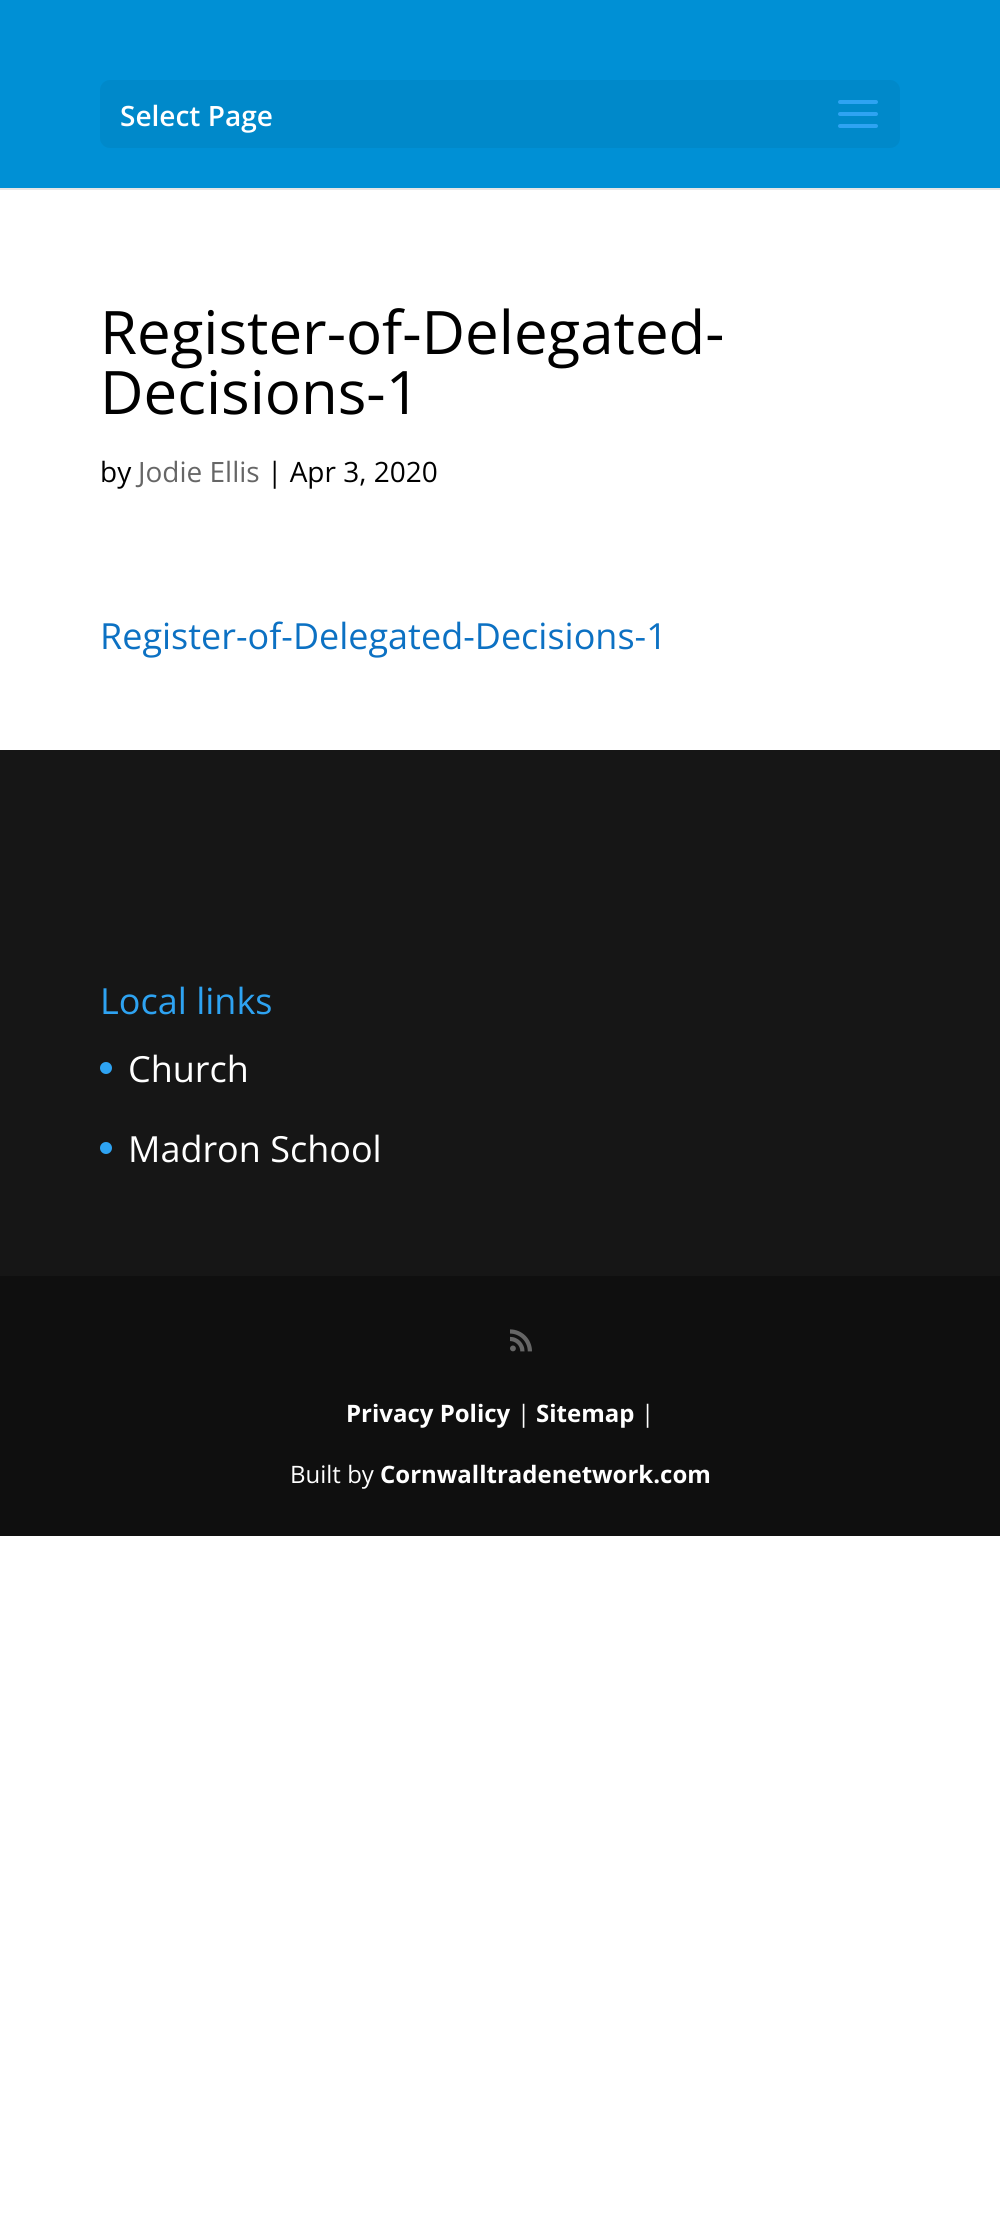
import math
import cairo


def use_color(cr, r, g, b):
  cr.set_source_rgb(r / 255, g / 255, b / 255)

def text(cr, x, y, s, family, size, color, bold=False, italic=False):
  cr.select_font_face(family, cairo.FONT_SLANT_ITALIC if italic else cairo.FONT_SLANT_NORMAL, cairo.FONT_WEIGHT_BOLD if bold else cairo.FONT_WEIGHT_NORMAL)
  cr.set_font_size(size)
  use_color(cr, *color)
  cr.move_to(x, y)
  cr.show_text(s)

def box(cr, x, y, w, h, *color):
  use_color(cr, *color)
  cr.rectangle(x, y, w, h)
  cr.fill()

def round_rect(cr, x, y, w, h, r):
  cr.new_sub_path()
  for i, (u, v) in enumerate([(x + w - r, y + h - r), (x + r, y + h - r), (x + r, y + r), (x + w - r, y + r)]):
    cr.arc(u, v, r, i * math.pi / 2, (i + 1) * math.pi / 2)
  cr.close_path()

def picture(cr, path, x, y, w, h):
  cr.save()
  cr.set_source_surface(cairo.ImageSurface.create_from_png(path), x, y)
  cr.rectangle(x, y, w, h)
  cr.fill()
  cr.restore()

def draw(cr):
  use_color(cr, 255, 255, 255)
  cr.paint()
  box(cr, 0, 188, 1000, 2, 230, 230, 230)
  box(cr, 0, 0, 1000, 188, 0, 144, 213)
  use_color(cr, 0, 137, 202)
  round_rect(cr, 100, 80, 800, 68, 10)
  cr.fill()
  picture(cr, "img_01.png", 838, 100, 40, 28)
  box(cr, 0, 750, 1000, 526, 22, 22, 22)
  use_color(cr, 46, 163, 242)
  cr.arc(106, 1068, 6, 0, 2 * math.pi)
  cr.fill()
  cr.arc(106, 1148, 6, 0, 2 * math.pi)
  cr.fill()
  box(cr, 0, 1276, 1000, 260, 15, 15, 15)
  picture(cr, "img_02.png", 510, 1329, 22, 23)
  text(cr, 120, 126, "Select Page", "Open Sans SemiBold", 28, (255, 255, 255))
  text(cr, 100, 354, "Register-of-Delegated-", "Open Sans", 60, (0, 0, 0))
  text(cr, 100, 414, "Decisions-1", "Open Sans", 60, (0, 0, 0))
  text(cr, 100, 482, "by", "Open Sans", 28, (0, 0, 0))
  text(cr, 138, 482, "Jodie Ellis", "Open Sans", 28, (102, 102, 102))
  text(cr, 267, 482, "| Apr 3, 2020", "Open Sans", 28, (0, 0, 0))
  text(cr, 100, 649, "Register-of-Delegated-Decisions-1", "Open Sans", 36, (12, 113, 195))
  text(cr, 100, 1014, "Local links", "Open Sans", 36, (46, 163, 242))
  text(cr, 128, 1082, "Church", "Open Sans", 36, (255, 255, 255))
  text(cr, 128, 1162, "Madron School", "Open Sans", 36, (255, 255, 255))
  text(cr, 346, 1422, "Privacy Policy", "Open Sans", 24, (255, 255, 255), bold=True)
  text(cr, 517, 1422, "|", "Open Sans", 24, (255, 255, 255))
  text(cr, 536, 1422, "Sitemap", "Open Sans", 24, (255, 255, 255), bold=True)
  text(cr, 641, 1422, "|", "Open Sans", 24, (255, 255, 255))
  text(cr, 290, 1483, "Built by", "Open Sans", 24, (255, 255, 255))
  text(cr, 380, 1483, "Cornwalltradenetwork.com", "Open Sans", 24, (255, 255, 255), bold=True)


surface = cairo.ImageSurface(cairo.FORMAT_RGB24, 1000, 2228)
cr = cairo.Context(surface)
options = cairo.FontOptions()
options.set_hint_metrics(cairo.HINT_METRICS_OFF)
options.set_hint_style(cairo.HINT_STYLE_NONE)
cr.set_font_options(options)
cr.set_miter_limit(4)
draw(cr)
surface.write_to_png("out.png")
